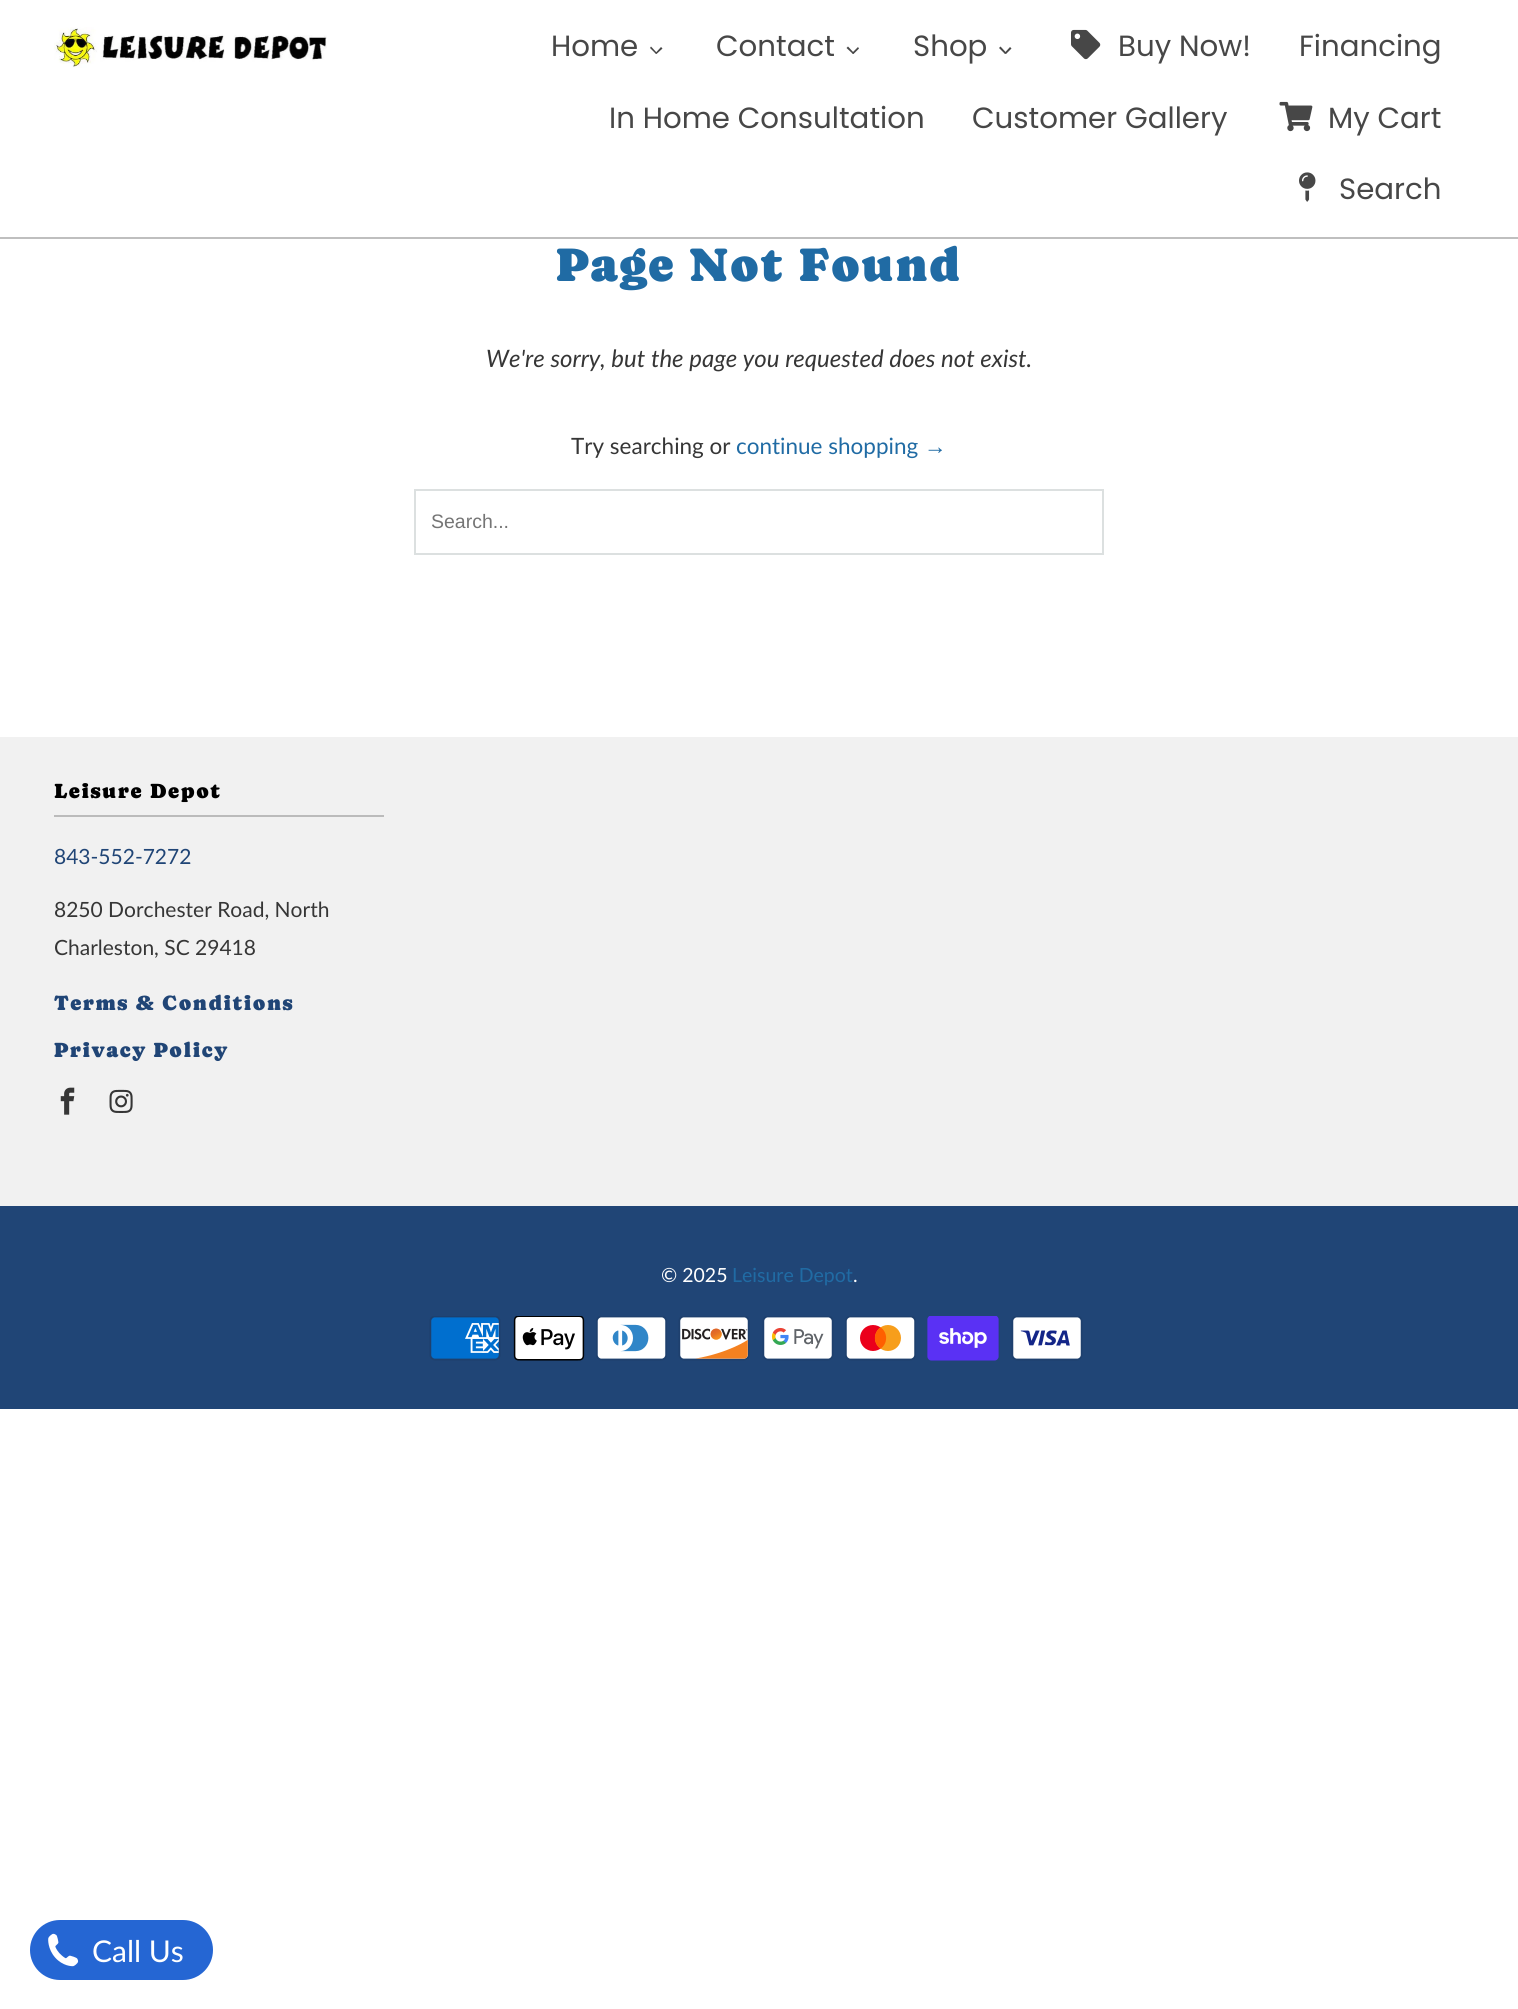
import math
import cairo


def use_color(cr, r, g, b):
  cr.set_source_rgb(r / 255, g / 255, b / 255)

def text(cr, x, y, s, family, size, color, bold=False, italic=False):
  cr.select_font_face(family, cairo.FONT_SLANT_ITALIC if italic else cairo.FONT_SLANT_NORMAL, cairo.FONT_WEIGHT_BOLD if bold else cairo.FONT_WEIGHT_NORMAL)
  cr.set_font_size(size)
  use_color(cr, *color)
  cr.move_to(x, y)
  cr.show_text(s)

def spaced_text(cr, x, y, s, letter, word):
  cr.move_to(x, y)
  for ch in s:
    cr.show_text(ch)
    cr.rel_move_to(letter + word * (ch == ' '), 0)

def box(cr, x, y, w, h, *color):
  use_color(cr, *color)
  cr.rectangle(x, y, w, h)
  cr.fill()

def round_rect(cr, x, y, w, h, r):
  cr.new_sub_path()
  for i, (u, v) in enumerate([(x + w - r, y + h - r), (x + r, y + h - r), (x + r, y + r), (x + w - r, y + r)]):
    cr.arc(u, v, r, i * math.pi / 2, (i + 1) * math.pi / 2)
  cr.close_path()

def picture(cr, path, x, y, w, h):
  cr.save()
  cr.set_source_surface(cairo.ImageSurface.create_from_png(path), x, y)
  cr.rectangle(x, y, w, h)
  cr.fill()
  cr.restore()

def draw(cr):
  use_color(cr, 255, 255, 255)
  cr.paint()
  box(cr, 0, 237, 1518, 2, 191, 191, 191)
  picture(cr, "img_01.png", 54, 27, 273, 41)
  use_color(cr, 71, 71, 71)
  cr.new_path()
  cr.move_to(661, 47)
  cr.line_to(662.5, 48.5)
  cr.line_to(656.5, 54)
  cr.line_to(655.5, 53)
  cr.close_path()
  cr.fill()
  cr.new_path()
  cr.move_to(651, 46.5)
  cr.line_to(657, 53)
  cr.line_to(656, 54)
  cr.line_to(650, 48)
  cr.close_path()
  cr.fill()
  cr.new_path()
  cr.move_to(858, 47)
  cr.line_to(859, 48.5)
  cr.line_to(853.5, 54)
  cr.line_to(852, 53)
  cr.close_path()
  cr.fill()
  cr.new_path()
  cr.move_to(848, 46.5)
  cr.line_to(854, 53)
  cr.line_to(853, 54)
  cr.line_to(846.5, 48)
  cr.close_path()
  cr.fill()
  cr.new_path()
  cr.move_to(1010, 47)
  cr.line_to(1011.5, 48.5)
  cr.line_to(1006, 54)
  cr.line_to(1004.5, 53)
  cr.close_path()
  cr.fill()
  cr.new_path()
  cr.move_to(1000.5, 46.5)
  cr.line_to(1006.5, 53)
  cr.line_to(1005, 54)
  cr.line_to(999, 48)
  cr.close_path()
  cr.fill()
  picture(cr, "img_02.png", 1071, 29, 30, 31)
  picture(cr, "img_03.png", 1279, 101, 34, 31)
  picture(cr, "img_04.png", 1299, 172, 17, 30)
  cr.rectangle(415, 490, 688, 64)
  use_color(cr, 220, 224, 224)
  cr.stroke()
  box(cr, 0, 737, 1518, 469, 241, 241, 241)
  box(cr, 54, 815, 330, 2, 187, 187, 187)
  picture(cr, "img_05.png", 60, 1087, 15, 28)
  picture(cr, "img_06.png", 109, 1089, 24, 24)
  box(cr, 0, 1206, 1518, 203, 32, 69, 118)
  picture(cr, "img_07.png", 429, 1316, 72, 45)
  picture(cr, "img_08.png", 513, 1316, 72, 45)
  picture(cr, "img_09.png", 596, 1316, 71, 45)
  picture(cr, "img_10.png", 678, 1316, 72, 45)
  picture(cr, "img_11.png", 762, 1316, 72, 45)
  picture(cr, "img_12.png", 845, 1316, 71, 45)
  picture(cr, "img_13.png", 927, 1316, 72, 45)
  picture(cr, "img_14.png", 1011, 1316, 72, 45)
  use_color(cr, 37, 102, 211)
  round_rect(cr, 30, 1920, 183, 60, 30)
  cr.fill()
  picture(cr, "img_15.png", 48, 1933, 31, 34)
  text(cr, 551, 56, "Home", "Poppins", 29.25, (71, 71, 71))
  text(cr, 716, 56, "Contact", "Poppins", 29.25, (71, 71, 71))
  text(cr, 913, 56, "Shop", "Poppins", 29.25, (71, 71, 71))
  text(cr, 1118, 56, "Buy Now!", "Poppins", 29.25, (71, 71, 71))
  text(cr, 1299, 56, "Financing", "Poppins", 29.25, (71, 71, 71))
  text(cr, 609, 128, "In Home Consultation", "Poppins", 29.25, (71, 71, 71))
  text(cr, 972, 128, "Customer Gallery", "Poppins", 29.25, (71, 71, 71))
  text(cr, 1328, 128, "My Cart", "Poppins", 29.25, (71, 71, 71))
  text(cr, 1339, 199, "Search", "Poppins", 29.25, (71, 71, 71))
  cr.select_font_face("Caprasimo")
  cr.set_font_size(48)
  use_color(cr, 32, 107, 164)
  spaced_text(cr, 556, 281, "Page Not Found", 1.5, 0)
  text(cr, 486, 367, "We're sorry, but the page you requested does not exist.", "Lato", 24, (54, 54, 54), italic=True)
  text(cr, 571, 454, "Try searching or", "Lato", 22.5, (54, 54, 54))
  text(cr, 736, 454, "continue shopping", "Lato", 22.5, (32, 107, 164))
  text(cr, 924, 454, "→", "Liberation Sans", 22.5, (32, 107, 164))
  text(cr, 431, 528, "Search...", "Liberation Sans", 19.5, (117, 117, 117))
  cr.select_font_face("Caprasimo")
  cr.set_font_size(21)
  use_color(cr, 0, 0, 0)
  spaced_text(cr, 54, 798, "Leisure Depot", 1.5, 0)
  text(cr, 54, 864, "843-552-7272", "Lato", 21, (32, 69, 118))
  text(cr, 54, 917, "8250 Dorchester Road, North", "Lato", 21, (54, 54, 54))
  text(cr, 54, 955, "Charleston, SC 29418", "Lato", 21, (54, 54, 54))
  cr.select_font_face("Caprasimo")
  use_color(cr, 32, 69, 118)
  spaced_text(cr, 54, 1010, "Terms & Conditions", 1.5, 0)
  spaced_text(cr, 54, 1057, "Privacy Policy", 1.5, 0)
  text(cr, 661, 1282, "© 2025", "Lato", 19.5, (255, 255, 255))
  text(cr, 732, 1282, "Leisure Depot", "Lato", 19.5, (32, 107, 164))
  text(cr, 853, 1282, ".", "Lato", 19.5, (255, 255, 255))
  text(cr, 92, 1962, "Call Us", "Lato", 30, (255, 255, 255))


surface = cairo.ImageSurface(cairo.FORMAT_RGB24, 1518, 2009)
cr = cairo.Context(surface)
options = cairo.FontOptions()
options.set_hint_metrics(cairo.HINT_METRICS_OFF)
options.set_hint_style(cairo.HINT_STYLE_NONE)
cr.set_font_options(options)
cr.set_miter_limit(4)
draw(cr)
surface.write_to_png("out.png")
